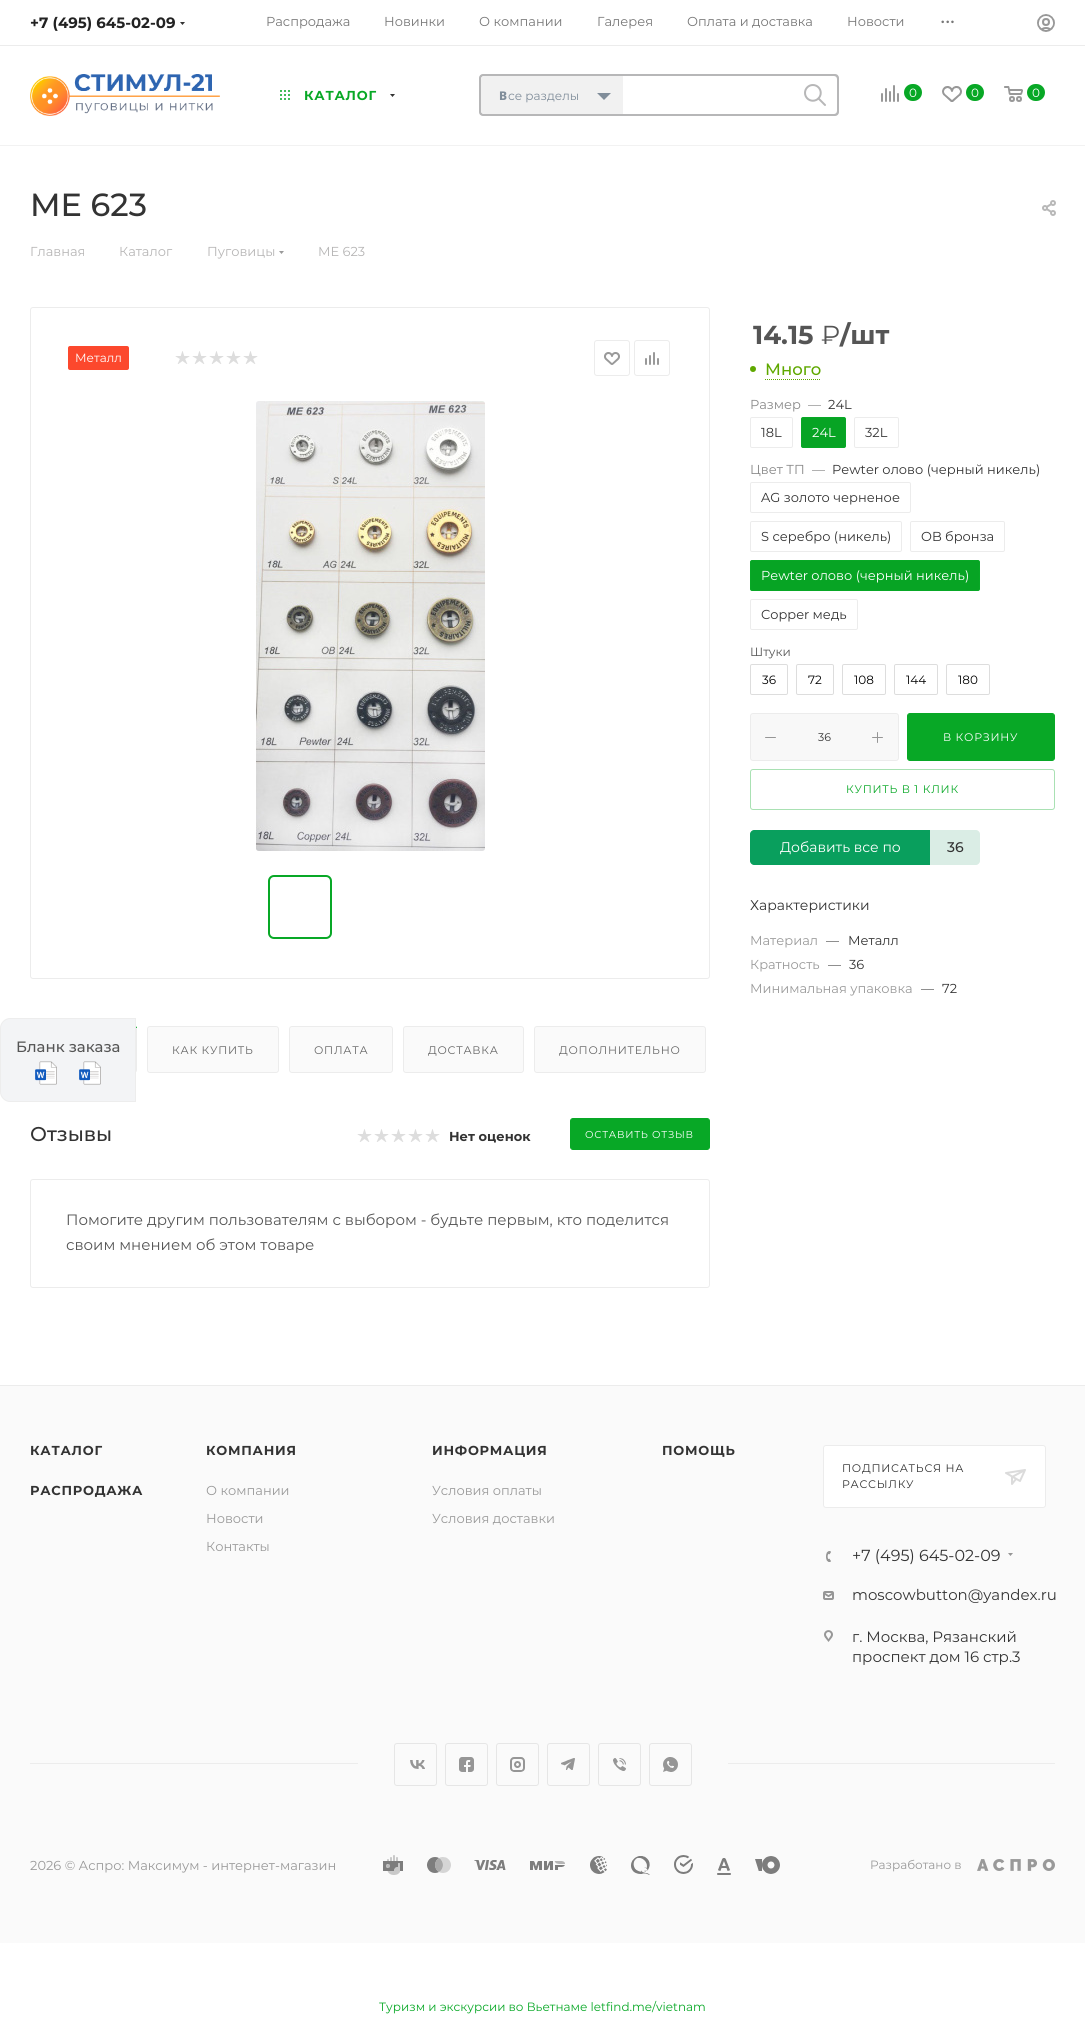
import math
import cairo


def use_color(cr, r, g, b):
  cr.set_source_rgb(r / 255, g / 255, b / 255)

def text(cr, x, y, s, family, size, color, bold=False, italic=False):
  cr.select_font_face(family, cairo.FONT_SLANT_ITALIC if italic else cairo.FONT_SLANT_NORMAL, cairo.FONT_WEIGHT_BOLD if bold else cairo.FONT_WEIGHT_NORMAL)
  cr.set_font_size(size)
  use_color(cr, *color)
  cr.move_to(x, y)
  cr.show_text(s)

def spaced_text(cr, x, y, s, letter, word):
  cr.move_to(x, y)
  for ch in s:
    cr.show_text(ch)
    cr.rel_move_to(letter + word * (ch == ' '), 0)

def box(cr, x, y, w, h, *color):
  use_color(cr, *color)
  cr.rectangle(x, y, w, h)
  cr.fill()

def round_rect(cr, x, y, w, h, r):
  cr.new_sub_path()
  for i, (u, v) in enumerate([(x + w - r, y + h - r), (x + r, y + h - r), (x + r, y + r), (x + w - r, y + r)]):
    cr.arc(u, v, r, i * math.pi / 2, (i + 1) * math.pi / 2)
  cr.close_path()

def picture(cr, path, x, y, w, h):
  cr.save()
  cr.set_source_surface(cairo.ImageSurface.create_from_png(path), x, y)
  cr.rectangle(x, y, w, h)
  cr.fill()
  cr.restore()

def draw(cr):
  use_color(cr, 255, 255, 255)
  cr.paint()
  box(cr, 0, 45, 1085, 1, 236, 236, 236)
  picture(cr, "img_01.png", 180, 22, 5, 3)
  picture(cr, "img_02.png", 1037, 14, 18, 18)
  picture(cr, "img_03.png", 30, 74, 190, 42)
  picture(cr, "img_04.png", 280, 90, 10, 10)
  picture(cr, "img_05.png", 390, 94, 5, 3)
  use_color(cr, 183, 183, 184)
  round_rect(cr, 479, 74, 360, 42, 4)
  cr.fill()
  use_color(cr, 255, 255, 255)
  round_rect(cr, 481, 76, 356, 38, 3)
  cr.fill()
  use_color(cr, 241, 241, 241)
  cr.new_path()
  cr.move_to(484, 76)
  cr.line_to(623, 76)
  cr.line_to(623, 114)
  cr.line_to(484, 114)
  cr.curve_to(482.5, 114, 481, 112.5, 481, 111)
  cr.line_to(481, 79)
  cr.curve_to(481, 77.5, 482.5, 76, 484, 76)
  cr.close_path()
  cr.fill()
  use_color(cr, 128, 141, 154)
  cr.new_path()
  cr.move_to(597, 93)
  cr.line_to(611, 93)
  cr.line_to(604, 100)
  cr.close_path()
  cr.fill()
  picture(cr, "img_06.png", 804, 84, 22, 22)
  picture(cr, "img_07.png", 881, 85, 18, 17)
  use_color(cr, 8, 168, 38)
  round_rect(cr, 904, 84, 18, 17, 8.5)
  cr.fill()
  picture(cr, "img_08.png", 942, 86, 20, 16)
  round_rect(cr, 966, 84, 18, 17, 8.5)
  cr.fill()
  picture(cr, "img_09.png", 1004, 86, 19, 16)
  round_rect(cr, 1027, 84, 18, 17, 8.5)
  cr.fill()
  box(cr, 0, 145, 1085, 1, 242, 242, 242)
  picture(cr, "img_10.png", 1042, 200, 14, 16)
  use_color(cr, 153, 153, 153)
  cr.set_fill_rule(cairo.FILL_RULE_EVEN_ODD)
  cr.new_path()
  cr.move_to(279, 251)
  cr.line_to(284, 251)
  cr.line_to(281.5, 254)
  cr.close_path()
  cr.fill()
  round_rect(cr, 30.5, 307.5, 679, 671, 2.5)
  use_color(cr, 236, 236, 236)
  cr.set_line_width(1)
  cr.stroke()
  use_color(cr, 252, 72, 45)
  round_rect(cr, 68, 346, 61, 24, 2)
  cr.fill()
  picture(cr, "img_11.png", 175, 351, 15, 13)
  picture(cr, "img_11.png", 192, 351, 15, 13)
  picture(cr, "img_11.png", 209, 351, 15, 13)
  picture(cr, "img_11.png", 226, 351, 15, 13)
  picture(cr, "img_11.png", 243, 351, 15, 13)
  round_rect(cr, 594.5, 340.5, 35, 35, 2.5)
  use_color(cr, 236, 236, 236)
  cr.stroke()
  picture(cr, "img_12.png", 604, 352, 16, 13)
  round_rect(cr, 634.5, 340.5, 35, 35, 2.5)
  cr.stroke()
  picture(cr, "img_13.png", 645, 352, 14, 13)
  picture(cr, "img_14.png", 256, 401, 229, 450)
  round_rect(cr, 269, 876, 62, 62, 5)
  use_color(cr, 8, 168, 38)
  cr.set_line_width(2)
  cr.stroke()
  round_rect(cr, 30.5, 1026.5, 106, 46, 2.5)
  use_color(cr, 236, 236, 236)
  cr.set_line_width(1)
  cr.stroke()
  use_color(cr, 8, 168, 38)
  cr.new_path()
  cr.move_to(32, 1026)
  cr.line_to(135, 1026)
  cr.curve_to(136, 1026, 137, 1027, 137, 1028)
  cr.line_to(30, 1028)
  cr.curve_to(30, 1027, 31, 1026, 32, 1026)
  cr.close_path()
  cr.fill()
  use_color(cr, 250, 250, 250)
  round_rect(cr, 147.5, 1026.5, 131, 46, 2.5)
  cr.fill_preserve()
  use_color(cr, 236, 236, 236)
  cr.stroke()
  use_color(cr, 250, 250, 250)
  round_rect(cr, 289.5, 1026.5, 103, 46, 2.5)
  cr.fill_preserve()
  use_color(cr, 236, 236, 236)
  cr.stroke()
  use_color(cr, 250, 250, 250)
  round_rect(cr, 403.5, 1026.5, 120, 46, 2.5)
  cr.fill_preserve()
  use_color(cr, 236, 236, 236)
  cr.stroke()
  use_color(cr, 250, 250, 250)
  round_rect(cr, 534.5, 1026.5, 171, 46, 2.5)
  cr.fill_preserve()
  use_color(cr, 236, 236, 236)
  cr.stroke()
  picture(cr, "img_11.png", 357, 1129, 15, 13)
  picture(cr, "img_11.png", 374, 1129, 15, 13)
  picture(cr, "img_11.png", 391, 1129, 15, 13)
  picture(cr, "img_11.png", 408, 1129, 15, 13)
  picture(cr, "img_11.png", 425, 1129, 15, 13)
  use_color(cr, 8, 168, 38)
  round_rect(cr, 570.5, 1118.5, 139, 31, 2.5)
  cr.fill_preserve()
  cr.stroke()
  round_rect(cr, 30.5, 1179.5, 679, 108, 2.5)
  use_color(cr, 236, 236, 236)
  cr.stroke()
  use_color(cr, 95, 168, 0)
  cr.arc(753, 369, 3, 0, 2 * math.pi)
  cr.fill()
  cr.new_path()
  cr.move_to(765, 379.5)
  cr.line_to(821, 379.5)
  cr.set_dash([1, 1])
  cr.stroke()
  round_rect(cr, 750.5, 417.5, 42, 30, 1.5)
  use_color(cr, 236, 236, 236)
  cr.set_dash([])
  cr.stroke()
  use_color(cr, 7, 164, 36)
  round_rect(cr, 801.5, 417.5, 44, 30, 1.5)
  cr.fill_preserve()
  use_color(cr, 8, 168, 38)
  cr.stroke()
  round_rect(cr, 854.5, 417.5, 44, 30, 1.5)
  use_color(cr, 236, 236, 236)
  cr.stroke()
  round_rect(cr, 750.5, 482.5, 160, 30, 1.5)
  cr.stroke()
  round_rect(cr, 750.5, 521.5, 151, 30, 1.5)
  cr.stroke()
  round_rect(cr, 910.5, 521.5, 94, 30, 1.5)
  cr.stroke()
  use_color(cr, 7, 164, 36)
  round_rect(cr, 750.5, 560.5, 229, 30, 1.5)
  cr.fill_preserve()
  use_color(cr, 8, 168, 38)
  cr.stroke()
  round_rect(cr, 750.5, 599.5, 107, 30, 1.5)
  use_color(cr, 236, 236, 236)
  cr.stroke()
  round_rect(cr, 750.5, 664.5, 37, 30, 1.5)
  use_color(cr, 221, 221, 221)
  cr.stroke()
  round_rect(cr, 796.5, 664.5, 37, 30, 1.5)
  cr.stroke()
  round_rect(cr, 842.5, 664.5, 43, 30, 1.5)
  cr.stroke()
  round_rect(cr, 894.5, 664.5, 43, 30, 1.5)
  cr.stroke()
  round_rect(cr, 946.5, 664.5, 43, 30, 1.5)
  cr.stroke()
  use_color(cr, 248, 248, 248)
  round_rect(cr, 750.5, 713.5, 148, 47, 2.5)
  cr.fill_preserve()
  use_color(cr, 236, 236, 236)
  cr.stroke()
  use_color(cr, 150, 150, 150)
  round_rect(cr, 765, 737, 11, 1, 0.5)
  cr.fill()
  picture(cr, "img_15.png", 872, 732, 11, 11)
  use_color(cr, 8, 168, 38)
  round_rect(cr, 907.5, 713.5, 147, 47, 2.5)
  cr.fill_preserve()
  cr.stroke()
  round_rect(cr, 750.5, 769.5, 304, 40, 2.5)
  use_color(cr, 169, 225, 179)
  cr.stroke()
  use_color(cr, 9, 159, 93)
  cr.new_path()
  cr.move_to(754, 830)
  cr.line_to(930, 830)
  cr.line_to(930, 865)
  cr.line_to(754, 865)
  cr.curve_to(752, 865, 750, 863, 750, 861)
  cr.line_to(750, 834)
  cr.curve_to(750, 832, 752, 830, 754, 830)
  cr.close_path()
  cr.fill()
  use_color(cr, 218, 237, 229)
  cr.new_path()
  cr.move_to(930, 830)
  cr.line_to(976, 830)
  cr.curve_to(978, 830, 980, 832, 980, 834)
  cr.line_to(980, 861)
  cr.curve_to(980, 863, 978, 865, 976, 865)
  cr.line_to(930, 865)
  cr.close_path()
  cr.fill()
  use_color(cr, 243, 244, 246)
  cr.new_path()
  cr.move_to(10, 1018.5)
  cr.line_to(135.5, 1018.5)
  cr.line_to(135.5, 1101.5)
  cr.line_to(10, 1101.5)
  cr.curve_to(5, 1101.5, 0.5, 1097, 0.5, 1092)
  cr.line_to(0.5, 1028)
  cr.curve_to(0.5, 1023, 5, 1018.5, 10, 1018.5)
  cr.close_path()
  cr.fill_preserve()
  use_color(cr, 237, 237, 237)
  cr.stroke()
  picture(cr, "img_16.png", 35, 1061, 22, 24)
  picture(cr, "img_16.png", 79, 1061, 22, 24)
  box(cr, 0, 1386, 1085, 557, 250, 250, 250)
  box(cr, 0, 1385, 1085, 1, 236, 236, 236)
  use_color(cr, 255, 255, 255)
  round_rect(cr, 823.5, 1445.5, 222, 62, 2.5)
  cr.fill_preserve()
  use_color(cr, 236, 236, 236)
  cr.stroke()
  picture(cr, "img_17.png", 1005, 1469, 21, 16)
  picture(cr, "img_18.png", 826, 1551, 5, 11)
  picture(cr, "img_19.png", 1008, 1553, 5, 3)
  picture(cr, "img_20.png", 823, 1591, 11, 9)
  picture(cr, "img_21.png", 824, 1630, 9, 12)
  box(cr, 30, 1763, 1025, 1, 236, 236, 236)
  box(cr, 358, 1763, 370, 1, 250, 250, 250)
  picture(cr, "img_22.png", 410, 1760, 15, 9)
  round_rect(cr, 394.5, 1743.5, 42, 42, 2.5)
  use_color(cr, 230, 230, 230)
  cr.stroke()
  picture(cr, "img_23.png", 459, 1757, 15, 15)
  round_rect(cr, 445.5, 1743.5, 42, 42, 2.5)
  cr.stroke()
  picture(cr, "img_24.png", 510, 1757, 15, 15)
  round_rect(cr, 496.5, 1743.5, 42, 42, 2.5)
  cr.stroke()
  picture(cr, "img_25.png", 561, 1758, 14, 12)
  round_rect(cr, 547.5, 1743.5, 42, 42, 2.5)
  cr.stroke()
  picture(cr, "img_26.png", 613, 1758, 13, 13)
  round_rect(cr, 598.5, 1743.5, 42, 42, 2.5)
  cr.stroke()
  picture(cr, "img_27.png", 663, 1757, 15, 15)
  round_rect(cr, 649.5, 1743.5, 42, 42, 2.5)
  cr.stroke()
  picture(cr, "img_28.png", 383, 1855, 20, 20)
  picture(cr, "img_29.png", 427, 1857, 24, 16)
  picture(cr, "img_30.png", 474, 1860, 32, 10)
  picture(cr, "img_31.png", 530, 1861, 35, 9)
  picture(cr, "img_32.png", 590, 1856, 17, 18)
  picture(cr, "img_33.png", 631, 1856, 19, 19)
  picture(cr, "img_34.png", 674, 1855, 19, 19)
  picture(cr, "img_35.png", 717, 1858, 14, 17)
  picture(cr, "img_36.png", 755, 1856, 25, 18)
  picture(cr, "img_37.png", 977, 1859, 78, 12)
  text(cr, 30, 28, "+7 (495) 645-02-09", "Montserrat", 15, (34, 34, 34), bold=True)
  text(cr, 266, 26, "Распродажа", "Montserrat", 13, (119, 119, 119))
  text(cr, 384, 26, "Новинки", "Montserrat", 13, (119, 119, 119))
  text(cr, 479, 26, "О компании", "Montserrat", 13, (119, 119, 119))
  text(cr, 597, 26, "Галерея", "Montserrat", 13, (119, 119, 119))
  text(cr, 687, 26, "Оплата и доставка", "Montserrat", 13, (119, 119, 119))
  text(cr, 847, 26, "Новости", "Montserrat", 13, (119, 119, 119))
  cr.select_font_face("Montserrat", cairo.FONT_SLANT_NORMAL, cairo.FONT_WEIGHT_BOLD)
  spaced_text(cr, 941, 23, "...", 1.5, 0)
  use_color(cr, 8, 168, 38)
  spaced_text(cr, 304, 100, "КАТАЛОГ", 0.75, 0)
  text(cr, 499, 100, "В", "Noto Sans ExtraBold", 12, (128, 141, 154))
  text(cr, 508, 100, "се разделы", "Montserrat", 12, (128, 141, 154))
  text(cr, 909, 97, "0", "Montserrat", 12, (255, 255, 255))
  text(cr, 971, 97, "0", "Montserrat", 12, (255, 255, 255))
  text(cr, 1032, 97, "0", "Montserrat", 12, (255, 255, 255))
  text(cr, 30, 216, "ME 623", "Montserrat Medium", 32, (51, 51, 51))
  text(cr, 30, 256, "Главная", "Montserrat", 13, (182, 181, 181))
  text(cr, 119, 256, "Каталог", "Montserrat", 13, (182, 181, 181))
  text(cr, 207, 256, "Пуговицы", "Montserrat", 13, (182, 181, 181))
  text(cr, 318, 256, "ME 623", "Montserrat", 13, (182, 181, 181))
  text(cr, 75, 362, "Металл", "Montserrat", 12, (255, 255, 255))
  cr.set_font_size(11)
  use_color(cr, 102, 102, 102)
  spaced_text(cr, 172, 1054, "КАК КУПИТЬ", 0.75, 0)
  spaced_text(cr, 314, 1054, "ОПЛАТА", 0.75, 0)
  spaced_text(cr, 428, 1054, "ДОСТАВКА", 0.75, 0)
  spaced_text(cr, 559, 1054, "ДОПОЛНИТЕЛЬНО", 0.75, 0)
  text(cr, 30, 1141, "Отзывы", "Montserrat Medium", 20, (51, 51, 51))
  text(cr, 449, 1141, "Нет оценок", "Montserrat", 13, (51, 51, 51), bold=True)
  cr.select_font_face("Montserrat")
  cr.set_font_size(10)
  use_color(cr, 255, 255, 255)
  spaced_text(cr, 585, 1138, "ОСТАВИТЬ ОТЗЫВ", 0.75, 0)
  text(cr, 66, 1225, "Помогите другим пользователям с выбором - будьте первым, кто поделится", "Montserrat", 15, (85, 85, 85))
  text(cr, 66, 1250, "своим мнением об этом товаре", "Montserrat", 15, (85, 85, 85))
  text(cr, 753, 344, "14.15", "Montserrat", 26, (85, 85, 85), bold=True)
  text(cr, 821, 344, "₽", "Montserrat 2", 26, (85, 85, 85))
  text(cr, 840, 344, "/шт", "Montserrat", 26, (85, 85, 85), bold=True)
  text(cr, 765, 375, "Много", "Montserrat Medium", 16.5, (95, 168, 0))
  text(cr, 750, 409, "Размер", "Montserrat", 13, (136, 136, 136))
  text(cr, 808, 409, "—", "Montserrat", 13, (136, 136, 136))
  text(cr, 828, 409, "24L", "Montserrat", 13, (51, 51, 51))
  text(cr, 761, 437, "18L", "Montserrat", 13, (51, 51, 51))
  text(cr, 812, 437, "24L", "Montserrat", 13, (255, 255, 255))
  text(cr, 865, 437, "32L", "Montserrat", 13, (51, 51, 51))
  text(cr, 750, 474, "Цвет ТП", "Montserrat", 13, (136, 136, 136))
  text(cr, 812, 474, "—", "Montserrat", 13, (136, 136, 136))
  text(cr, 832, 474, "Pewter олово (черный никель)", "Montserrat", 13, (51, 51, 51))
  text(cr, 761, 502, "AG золото черненое", "Montserrat", 13, (51, 51, 51))
  text(cr, 761, 541, "S серебро (никель)", "Montserrat", 13, (51, 51, 51))
  text(cr, 921, 541, "OB бронза", "Montserrat", 13, (51, 51, 51))
  text(cr, 761, 580, "Pewter олово (черный никель)", "Montserrat", 13, (255, 255, 255))
  text(cr, 761, 619, "Copper медь", "Montserrat", 13, (51, 51, 51))
  text(cr, 750, 656, "Штуки", "Montserrat", 12, (85, 85, 85))
  text(cr, 762, 684, "36", "Montserrat", 12, (0, 0, 0))
  text(cr, 808, 684, "72", "Montserrat", 12, (0, 0, 0))
  text(cr, 854, 684, "108", "Montserrat", 12, (0, 0, 0))
  text(cr, 906, 684, "144", "Montserrat", 12, (0, 0, 0))
  text(cr, 958, 684, "180", "Montserrat", 12, (0, 0, 0))
  text(cr, 818, 741, "36", "Montserrat", 11, (51, 51, 51))
  use_color(cr, 255, 255, 255)
  spaced_text(cr, 943, 741, "В КОРЗИНУ", 0.75, 0)
  use_color(cr, 8, 168, 38)
  spaced_text(cr, 846, 793, "КУПИТЬ В 1 КЛИК", 0.75, 0)
  text(cr, 780, 852, "Добавить все по", "Montserrat", 14, (255, 255, 255))
  text(cr, 947, 852, "36", "Montserrat Medium", 14, (51, 51, 51))
  text(cr, 750, 910, "Характеристики", "Montserrat", 14, (51, 51, 51))
  text(cr, 750, 945, "Материал", "Montserrat", 13, (153, 153, 153))
  text(cr, 826, 945, "—", "Montserrat", 13, (85, 85, 85))
  text(cr, 848, 945, "Металл", "Montserrat", 13, (51, 51, 51))
  text(cr, 750, 969, "Кратность", "Montserrat", 13, (153, 153, 153))
  text(cr, 828, 969, "—", "Montserrat", 13, (85, 85, 85))
  text(cr, 849, 969, "36", "Montserrat", 13, (51, 51, 51))
  text(cr, 750, 993, "Минимальная упаковка", "Montserrat", 13, (153, 153, 153))
  text(cr, 921, 993, "—", "Montserrat", 13, (85, 85, 85))
  text(cr, 942, 993, "72", "Montserrat", 13, (51, 51, 51))
  text(cr, 16, 1052, "Бланк заказа", "Montserrat Medium", 15, (85, 85, 85))
  cr.select_font_face("Montserrat", cairo.FONT_SLANT_NORMAL, cairo.FONT_WEIGHT_BOLD)
  cr.set_font_size(13)
  use_color(cr, 51, 51, 51)
  spaced_text(cr, 30, 1455, "КАТАЛОГ", 0.75, 0)
  spaced_text(cr, 30, 1495, "РАСПРОДАЖА", 0.75, 0)
  spaced_text(cr, 206, 1455, "КОМПАНИЯ", 0.75, 0)
  text(cr, 206, 1495, "О компании", "Montserrat", 13, (153, 153, 153))
  text(cr, 206, 1523, "Новости", "Montserrat", 13, (153, 153, 153))
  text(cr, 206, 1551, "Контакты", "Montserrat", 13, (153, 153, 153))
  cr.select_font_face("Montserrat", cairo.FONT_SLANT_NORMAL, cairo.FONT_WEIGHT_BOLD)
  use_color(cr, 51, 51, 51)
  spaced_text(cr, 432, 1455, "ИНФОРМАЦИЯ", 0.75, 0)
  text(cr, 432, 1495, "Условия оплаты", "Montserrat", 13, (153, 153, 153))
  text(cr, 432, 1523, "Условия доставки", "Montserrat", 13, (153, 153, 153))
  cr.select_font_face("Montserrat", cairo.FONT_SLANT_NORMAL, cairo.FONT_WEIGHT_BOLD)
  use_color(cr, 51, 51, 51)
  spaced_text(cr, 662, 1455, "ПОМОЩЬ", 0.75, 0)
  cr.select_font_face("Montserrat")
  cr.set_font_size(11)
  spaced_text(cr, 842, 1472, "ПОДПИСАТЬСЯ НА", 0.75, 0)
  spaced_text(cr, 842, 1488, "РАССЫЛКУ", 0.75, 0)
  text(cr, 852, 1561, "+7 (495) 645-02-09", "Montserrat", 16, (51, 51, 51))
  text(cr, 852, 1600, "moscowbutton@yandex.ru", "Montserrat", 15, (51, 51, 51))
  text(cr, 852, 1642, "г. Москва, Рязанский", "Montserrat", 15, (51, 51, 51))
  text(cr, 852, 1662, "проспект дом 16 стр.3", "Montserrat", 15, (51, 51, 51))
  text(cr, 30, 1870, "2026 © Аспро: Максимум - интернет-магазин", "Montserrat", 13, (153, 153, 153))
  text(cr, 870, 1869, "Разработано в", "Montserrat", 12, (153, 153, 153))
  text(cr, 379, 2011, "Туризм и экскурсии во Вьетнаме letfind.me/vietnam", "Montserrat", 12, (8, 168, 38))


surface = cairo.ImageSurface(cairo.FORMAT_RGB24, 1085, 2036)
cr = cairo.Context(surface)
options = cairo.FontOptions()
options.set_hint_metrics(cairo.HINT_METRICS_OFF)
options.set_hint_style(cairo.HINT_STYLE_NONE)
cr.set_font_options(options)
cr.set_miter_limit(4)
draw(cr)
surface.write_to_png("out.png")
